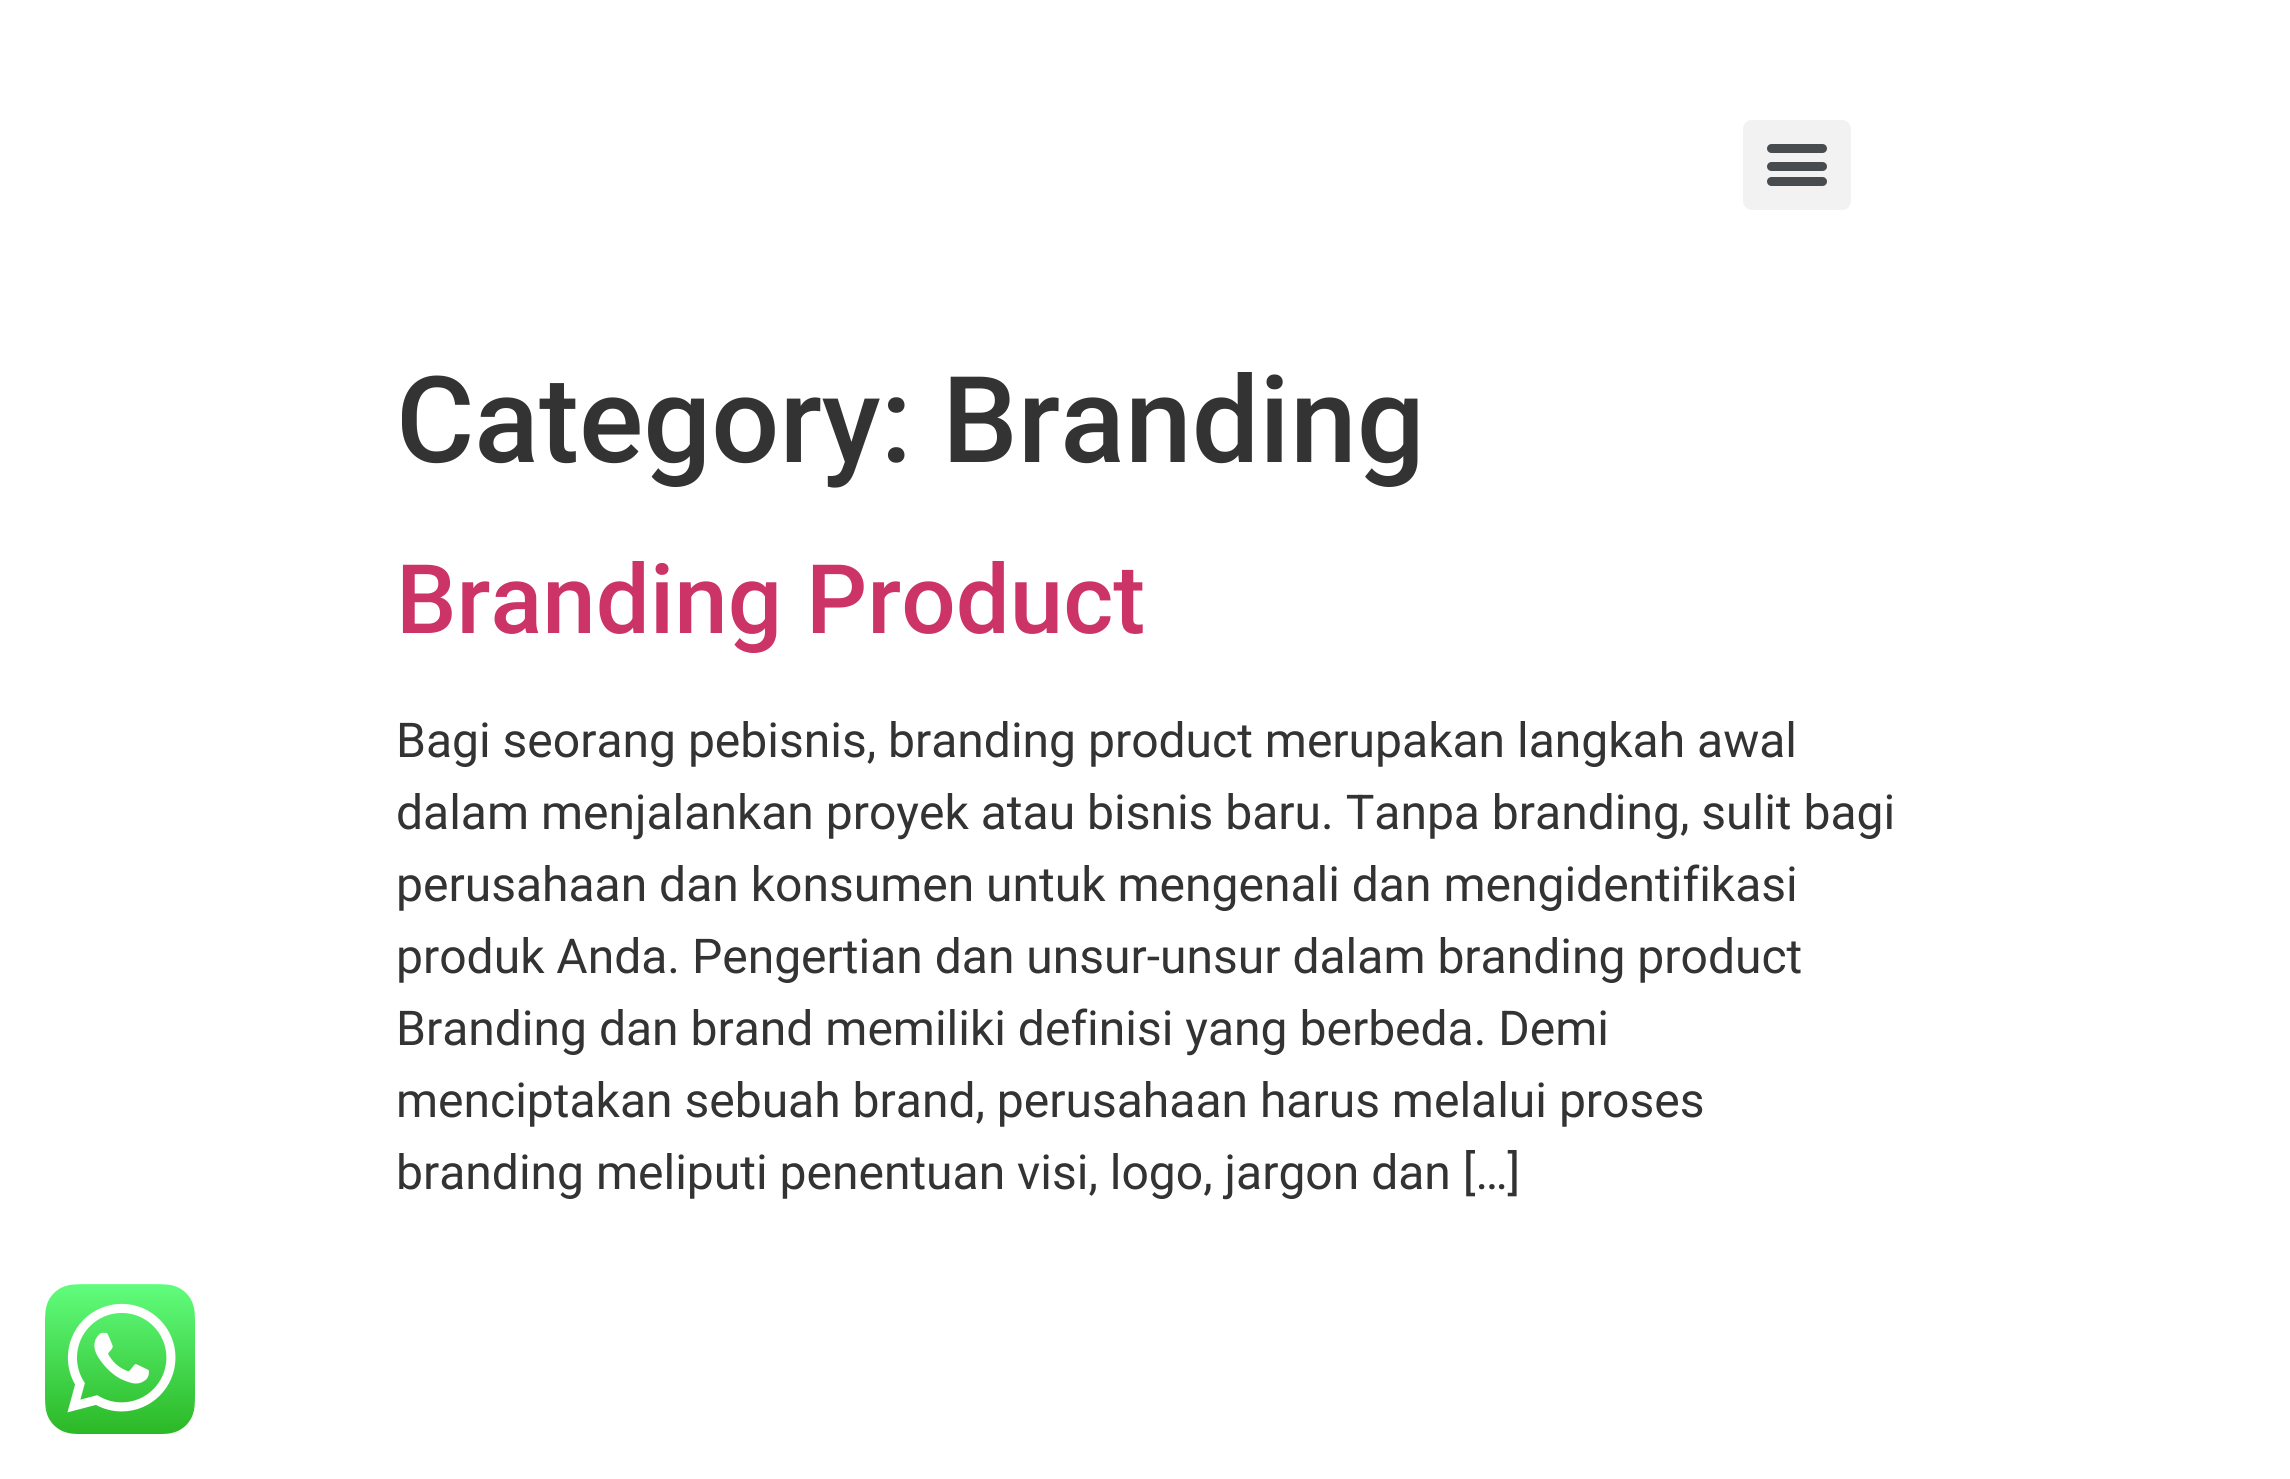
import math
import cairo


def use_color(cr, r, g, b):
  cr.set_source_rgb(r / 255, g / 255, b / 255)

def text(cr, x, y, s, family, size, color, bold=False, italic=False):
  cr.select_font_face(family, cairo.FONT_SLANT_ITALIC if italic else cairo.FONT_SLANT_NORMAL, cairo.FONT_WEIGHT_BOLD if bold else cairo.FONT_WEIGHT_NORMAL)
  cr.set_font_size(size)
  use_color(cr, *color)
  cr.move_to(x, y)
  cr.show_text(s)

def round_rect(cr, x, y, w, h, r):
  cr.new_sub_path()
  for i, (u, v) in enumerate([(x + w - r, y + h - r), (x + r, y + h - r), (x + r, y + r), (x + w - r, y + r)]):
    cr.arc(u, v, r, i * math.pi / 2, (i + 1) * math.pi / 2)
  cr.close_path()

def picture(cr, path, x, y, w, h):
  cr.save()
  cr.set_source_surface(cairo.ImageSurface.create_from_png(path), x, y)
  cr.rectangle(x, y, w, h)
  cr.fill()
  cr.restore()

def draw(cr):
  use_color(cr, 255, 255, 255)
  cr.paint()
  use_color(cr, 242, 242, 242)
  round_rect(cr, 1743, 120, 108, 90, 9)
  cr.fill()
  use_color(cr, 73, 76, 79)
  round_rect(cr, 1767, 162, 60, 9, 4.5)
  cr.fill()
  round_rect(cr, 1767, 144, 60, 9, 4.5)
  cr.fill()
  round_rect(cr, 1767, 177, 60, 9, 4.5)
  cr.fill()
  picture(cr, "img_01.png", 45, 1284, 150, 150)
  text(cr, 396, 462, "Category: Branding", "Roboto Medium", 120, (51, 51, 51))
  text(cr, 396, 633, "Branding Product", "Roboto Medium", 96, (204, 51, 102))
  text(cr, 396, 757, "Bagi seorang pebisnis, branding product merupakan langkah awal", "Roboto", 48, (51, 51, 51))
  text(cr, 396, 829, "dalam menjalankan proyek atau bisnis baru. Tanpa branding, sulit bagi", "Roboto", 48, (51, 51, 51))
  text(cr, 396, 901, "perusahaan dan konsumen untuk mengenali dan mengidentifikasi", "Roboto", 48, (51, 51, 51))
  text(cr, 396, 973, "produk Anda. Pengertian dan unsur-unsur dalam branding product", "Roboto", 48, (51, 51, 51))
  text(cr, 396, 1045, "Branding dan brand memiliki definisi yang berbeda. Demi", "Roboto", 48, (51, 51, 51))
  text(cr, 396, 1117, "menciptakan sebuah brand, perusahaan harus melalui proses", "Roboto", 48, (51, 51, 51))
  text(cr, 396, 1189, "branding meliputi penentuan visi, logo, jargon dan […]", "Roboto", 48, (51, 51, 51))


surface = cairo.ImageSurface(cairo.FORMAT_RGB24, 2290, 1479)
cr = cairo.Context(surface)
options = cairo.FontOptions()
options.set_hint_metrics(cairo.HINT_METRICS_OFF)
options.set_hint_style(cairo.HINT_STYLE_NONE)
cr.set_font_options(options)
cr.set_miter_limit(4)
draw(cr)
surface.write_to_png("out.png")
